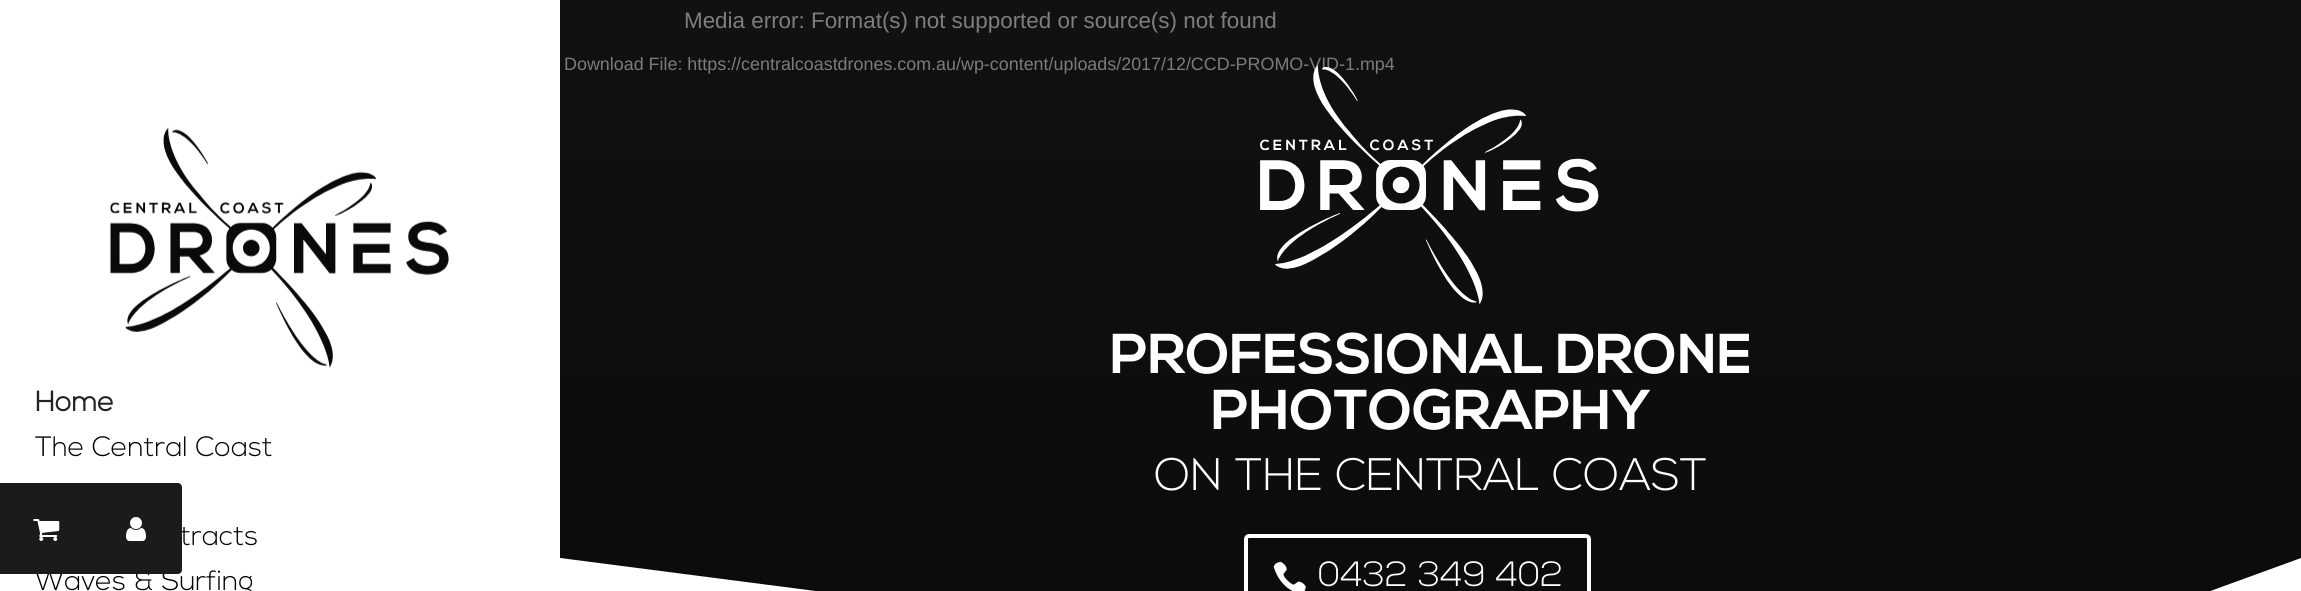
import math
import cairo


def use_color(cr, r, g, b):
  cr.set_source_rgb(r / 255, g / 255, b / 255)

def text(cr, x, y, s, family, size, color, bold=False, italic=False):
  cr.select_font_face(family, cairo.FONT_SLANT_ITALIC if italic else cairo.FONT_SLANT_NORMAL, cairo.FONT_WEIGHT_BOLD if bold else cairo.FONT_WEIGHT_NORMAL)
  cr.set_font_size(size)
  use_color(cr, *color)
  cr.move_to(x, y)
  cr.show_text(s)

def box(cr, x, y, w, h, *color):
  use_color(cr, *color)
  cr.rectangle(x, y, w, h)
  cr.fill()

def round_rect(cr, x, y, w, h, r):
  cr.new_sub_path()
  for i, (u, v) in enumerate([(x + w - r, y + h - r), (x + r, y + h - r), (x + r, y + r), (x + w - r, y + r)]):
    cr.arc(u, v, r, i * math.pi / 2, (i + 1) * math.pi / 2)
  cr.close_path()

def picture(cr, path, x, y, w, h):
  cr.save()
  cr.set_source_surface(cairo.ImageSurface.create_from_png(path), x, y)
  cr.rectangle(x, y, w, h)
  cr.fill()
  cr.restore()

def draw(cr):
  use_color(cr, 255, 255, 255)
  cr.paint()
  picture(cr, "img_01.png", 110, 127, 339, 241)
  box(cr, 560, 0, 1741, 591, 34, 34, 34)
  text(cr, 35, 411, "Home", "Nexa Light", 28, (34, 34, 34), bold=True)
  text(cr, 35, 456, "The Central Coast", "Nexa Light Light", 28, (0, 0, 0))
  text(cr, 180, 545, "tracts", "Nexa Light Light", 28, (0, 0, 0))
  text(cr, 35, 590, "Waves & Surfing", "Nexa Light Light", 28, (0, 0, 0))
  use_color(cr, 27, 27, 27)
  cr.new_path()
  cr.move_to(0, 483)
  cr.line_to(178, 483)
  cr.curve_to(180, 483, 182, 485, 182, 487)
  cr.line_to(182, 570)
  cr.curve_to(182, 572, 180, 574, 178, 574)
  cr.line_to(0, 574)
  cr.close_path()
  cr.fill()
  picture(cr, "img_02.png", 33, 519, 27, 22)
  picture(cr, "img_03.png", 126, 517, 20, 24)
  text(cr, 684, 28, "Media error: Format(s) not supported or source(s) not found", "Liberation Sans", 22.4, (255, 255, 255))
  text(cr, 564, 70, "Download File: https://centralcoastdrones.com.au/wp-content/uploads/2017/12/CCD-PROMO-VID-1.mp4", "Liberation Sans", 17.9, (255, 255, 255))
  gradient = cairo.LinearGradient(1431, 0, 1431, 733)
  gradient.add_color_stop_rgba(0, 0, 0, 0, 0.5)
  gradient.add_color_stop_rgba(1, 0, 0, 0, 0.7)
  cr.set_source(gradient)
  cr.rectangle(560, 0, 1741, 591)
  cr.fill()
  picture(cr, "img_04.png", 1260, 65, 339, 240)
  text(cr, 1110, 373, "PROFESSIONAL DRONE", "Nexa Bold", 56, (255, 255, 255), bold=True)
  text(cr, 1211, 429, "PHOTOGRAPHY", "Nexa Bold", 56, (255, 255, 255), bold=True)
  text(cr, 1154, 490, "ON THE CENTRAL COAST", "Nexa Light Light", 45.5, (255, 255, 255))
  round_rect(cr, 1246, 536, 343, 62, 3)
  cr.set_line_width(4)
  cr.stroke()
  picture(cr, "img_05.png", 1273, 561, 33, 30)
  text(cr, 1318, 586, "0432 349 402", "Nexa Light Light", 35, (255, 255, 255))
  cr.new_path()
  cr.move_to(1845, 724)
  cr.line_to(560, 558)
  cr.line_to(560, 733)
  cr.line_to(2301, 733)
  cr.line_to(2301, 558)
  cr.close_path()
  cr.fill()


surface = cairo.ImageSurface(cairo.FORMAT_RGB24, 2301, 591)
cr = cairo.Context(surface)
options = cairo.FontOptions()
options.set_hint_metrics(cairo.HINT_METRICS_OFF)
options.set_hint_style(cairo.HINT_STYLE_NONE)
cr.set_font_options(options)
cr.set_miter_limit(4)
draw(cr)
surface.write_to_png("out.png")
